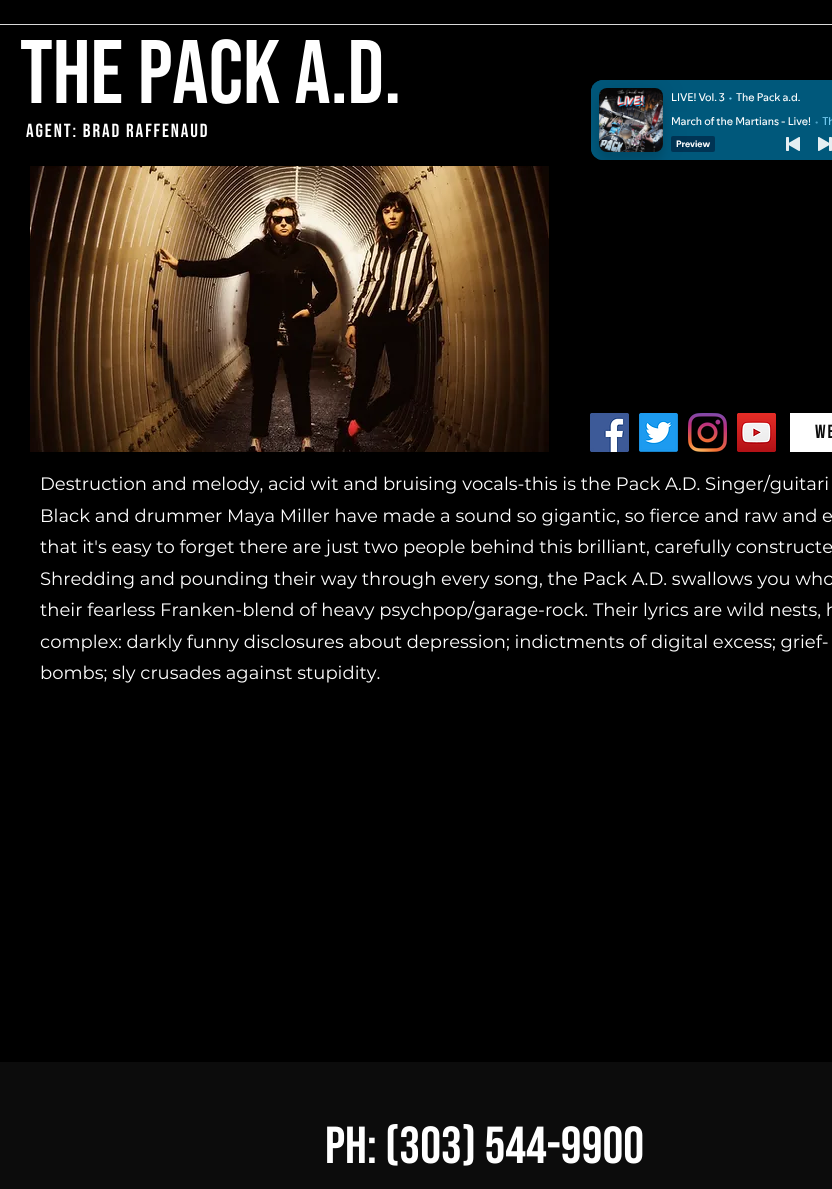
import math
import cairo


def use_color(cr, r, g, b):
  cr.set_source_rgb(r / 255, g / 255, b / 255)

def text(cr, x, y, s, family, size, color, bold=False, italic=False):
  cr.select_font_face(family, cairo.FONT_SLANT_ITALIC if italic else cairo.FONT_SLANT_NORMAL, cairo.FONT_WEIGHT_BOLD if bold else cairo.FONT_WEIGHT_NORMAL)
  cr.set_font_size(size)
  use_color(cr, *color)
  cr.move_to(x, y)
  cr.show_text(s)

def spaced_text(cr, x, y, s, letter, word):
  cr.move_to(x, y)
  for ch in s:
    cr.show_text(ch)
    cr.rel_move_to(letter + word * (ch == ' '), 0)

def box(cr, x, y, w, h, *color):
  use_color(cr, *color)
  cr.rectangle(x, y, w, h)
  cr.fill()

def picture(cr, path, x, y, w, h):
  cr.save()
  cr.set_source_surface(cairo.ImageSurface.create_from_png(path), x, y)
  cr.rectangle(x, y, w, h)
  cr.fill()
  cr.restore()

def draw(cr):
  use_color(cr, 0, 0, 0)
  cr.paint()
  box(cr, 0, 24, 832, 1, 217, 217, 217)
  picture(cr, "img_01.png", 591, 80, 241, 80)
  picture(cr, "img_02.png", 30, 166, 519, 286)
  picture(cr, "img_03.png", 590, 413, 39, 39)
  picture(cr, "img_04.png", 639, 413, 39, 39)
  picture(cr, "img_05.png", 688, 413, 39, 39)
  picture(cr, "img_06.png", 737, 413, 39, 39)
  box(cr, 790, 413, 42, 39, 255, 255, 255)
  box(cr, 0, 1062, 832, 127, 12, 12, 12)
  text(cr, 20, 103, "The Pack A.D.", "Bebas Neue", 90, (255, 255, 255))
  cr.set_font_size(19)
  spaced_text(cr, 26, 137, "Agent: Brad Raffenaud", 1.9, 0)
  use_color(cr, 12, 12, 12)
  spaced_text(cr, 815, 438, "WE", 1.9, 0)
  text(cr, 40, 490, "Destruction and melody, acid wit and bruising vocals-this is the Pack A.D. Singer/guitari", "Montserrat", 18, (255, 255, 255))
  text(cr, 40, 522, "Black and drummer Maya Miller have made a sound so gigantic, so fierce and raw and e", "Montserrat", 18, (255, 255, 255))
  text(cr, 40, 553, "that it's easy to forget there are just two people behind this brilliant, carefully constructe", "Montserrat", 18, (255, 255, 255))
  text(cr, 40, 585, "Shredding and pounding their way through every song, the Pack A.D. swallows you who", "Montserrat", 18, (255, 255, 255))
  text(cr, 40, 616, "their fearless Franken-blend of heavy psychpop/garage-rock. Their lyrics are wild nests, h", "Montserrat", 18, (255, 255, 255))
  text(cr, 40, 648, "complex: darkly funny disclosures about depression; indictments of digital excess; grief-", "Montserrat", 18, (255, 255, 255))
  text(cr, 40, 679, "bombs; sly crusades against stupidity.", "Montserrat", 18, (255, 255, 255))
  text(cr, 325, 1163, "PH: (303) 544-9900", "Bebas Neue", 52, (255, 255, 255))


surface = cairo.ImageSurface(cairo.FORMAT_RGB24, 832, 1189)
cr = cairo.Context(surface)
options = cairo.FontOptions()
options.set_hint_metrics(cairo.HINT_METRICS_OFF)
options.set_hint_style(cairo.HINT_STYLE_NONE)
cr.set_font_options(options)
cr.set_miter_limit(4)
draw(cr)
surface.write_to_png("out.png")
